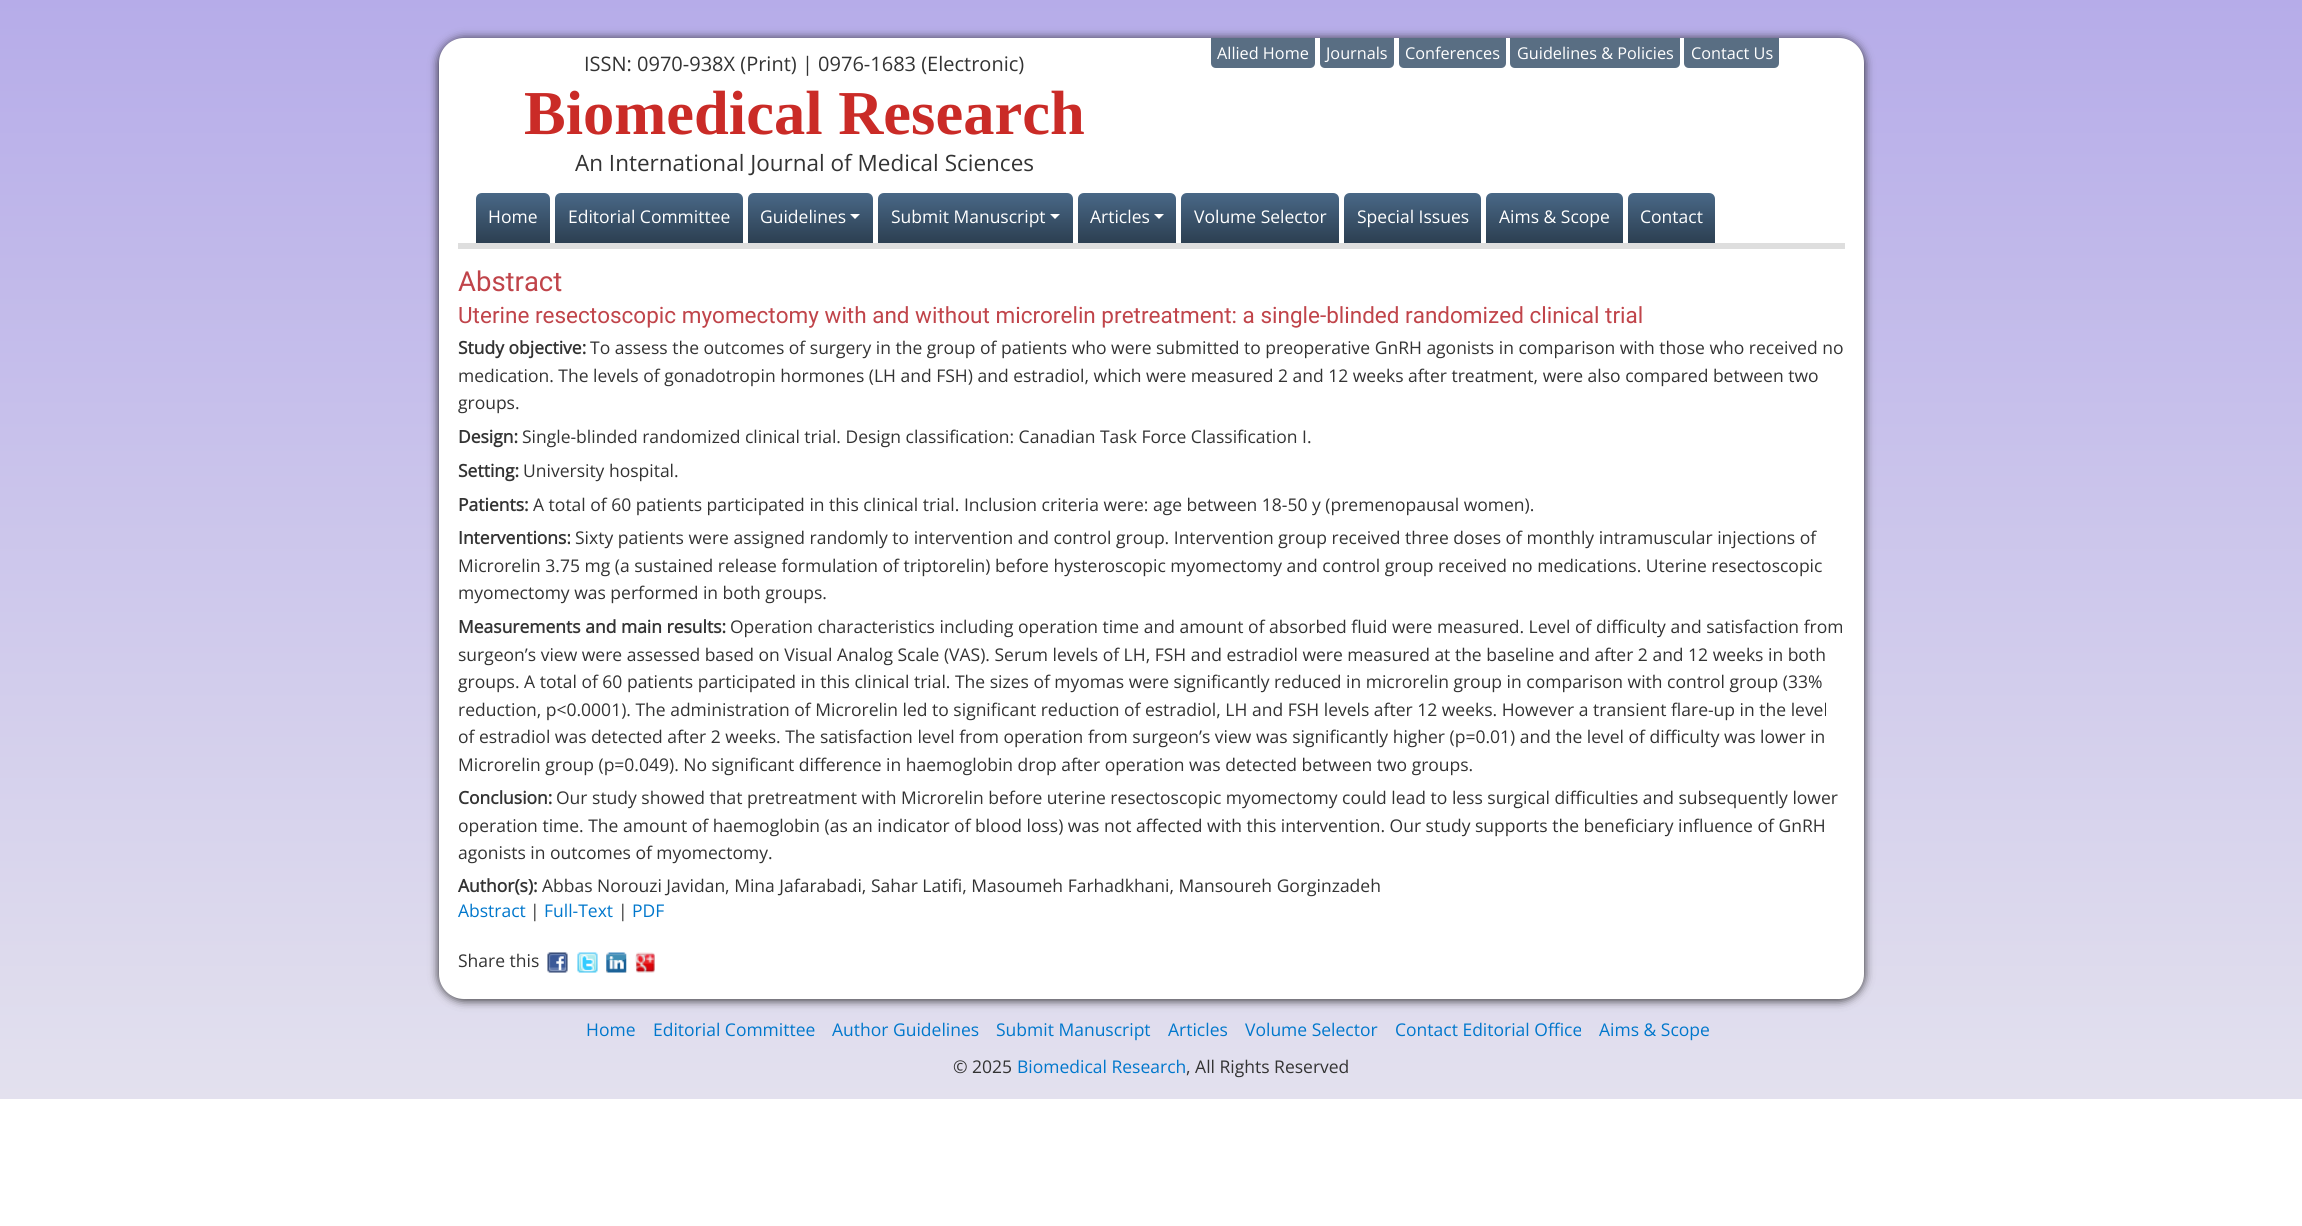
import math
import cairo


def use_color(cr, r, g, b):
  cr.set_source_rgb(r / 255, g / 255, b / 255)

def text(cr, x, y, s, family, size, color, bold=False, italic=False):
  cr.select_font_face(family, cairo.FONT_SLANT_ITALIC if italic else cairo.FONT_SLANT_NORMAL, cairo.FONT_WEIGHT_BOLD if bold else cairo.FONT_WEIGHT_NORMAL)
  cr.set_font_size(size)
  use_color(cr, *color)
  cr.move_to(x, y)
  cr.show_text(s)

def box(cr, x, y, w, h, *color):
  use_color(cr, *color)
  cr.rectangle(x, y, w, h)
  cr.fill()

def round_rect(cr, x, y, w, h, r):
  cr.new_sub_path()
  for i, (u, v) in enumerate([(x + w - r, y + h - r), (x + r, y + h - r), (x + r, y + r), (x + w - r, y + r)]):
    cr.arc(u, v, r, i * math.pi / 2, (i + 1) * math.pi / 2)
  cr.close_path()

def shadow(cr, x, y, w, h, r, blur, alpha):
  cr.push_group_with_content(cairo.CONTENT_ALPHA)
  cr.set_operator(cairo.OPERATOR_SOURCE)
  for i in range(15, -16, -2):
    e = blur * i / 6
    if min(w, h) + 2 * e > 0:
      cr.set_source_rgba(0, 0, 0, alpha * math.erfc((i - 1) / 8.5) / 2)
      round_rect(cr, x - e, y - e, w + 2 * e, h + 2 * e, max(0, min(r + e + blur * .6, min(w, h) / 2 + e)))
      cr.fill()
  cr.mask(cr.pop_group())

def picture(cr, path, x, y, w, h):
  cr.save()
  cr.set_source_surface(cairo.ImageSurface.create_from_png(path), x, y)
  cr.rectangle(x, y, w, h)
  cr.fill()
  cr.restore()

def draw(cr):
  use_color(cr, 255, 255, 255)
  cr.paint()
  gradient = cairo.LinearGradient(1151, 1099, 1151, 0)
  gradient.add_color_stop_rgba(0, 0.89, 0.882, 0.933, 1)
  gradient.add_color_stop_rgba(1, 0.714, 0.675, 0.914, 1)
  cr.set_source(gradient)
  cr.rectangle(0, 0, 2302, 1099)
  cr.fill()
  use_color(cr, 32, 32, 32)
  shadow(cr, 439, 39, 1425, 961, 25, 5, 1)
  use_color(cr, 255, 255, 255)
  round_rect(cr, 439, 38, 1425, 961, 25)
  cr.fill()
  box(cr, 458, 243, 1387, 6, 222, 222, 222)
  use_color(cr, 89, 110, 131)
  cr.new_path()
  cr.move_to(1211, 38)
  cr.line_to(1315, 38)
  cr.line_to(1315, 63)
  cr.curve_to(1315, 66, 1313, 68, 1310, 68)
  cr.line_to(1216, 68)
  cr.curve_to(1213, 68, 1211, 66, 1211, 63)
  cr.close_path()
  cr.fill()
  cr.new_path()
  cr.move_to(1320, 38)
  cr.line_to(1394, 38)
  cr.line_to(1394, 63)
  cr.curve_to(1394, 66, 1392, 68, 1389, 68)
  cr.line_to(1325, 68)
  cr.curve_to(1322, 68, 1320, 66, 1320, 63)
  cr.close_path()
  cr.fill()
  cr.new_path()
  cr.move_to(1399, 38)
  cr.line_to(1506, 38)
  cr.line_to(1506, 63)
  cr.curve_to(1506, 66, 1504, 68, 1501, 68)
  cr.line_to(1404, 68)
  cr.curve_to(1401, 68, 1399, 66, 1399, 63)
  cr.close_path()
  cr.fill()
  cr.new_path()
  cr.move_to(1510, 38)
  cr.line_to(1680, 38)
  cr.line_to(1680, 63)
  cr.curve_to(1680, 66, 1678, 68, 1675, 68)
  cr.line_to(1515, 68)
  cr.curve_to(1512, 68, 1510, 66, 1510, 63)
  cr.close_path()
  cr.fill()
  cr.new_path()
  cr.move_to(1684, 38)
  cr.line_to(1779, 38)
  cr.line_to(1779, 63)
  cr.curve_to(1779, 66, 1777, 68, 1774, 68)
  cr.line_to(1689, 68)
  cr.curve_to(1686, 68, 1684, 66, 1684, 63)
  cr.close_path()
  cr.fill()
  gradient = cairo.LinearGradient(513, 243, 513, 193)
  gradient.add_color_stop_rgba(0, 0.173, 0.247, 0.318, 1)
  gradient.add_color_stop_rgba(1, 0.286, 0.408, 0.529, 1)
  cr.set_source(gradient)
  cr.new_path()
  cr.move_to(482, 193)
  cr.line_to(544, 193)
  cr.curve_to(547.5, 193, 550, 195.5, 550, 199)
  cr.line_to(550, 243)
  cr.line_to(476, 243)
  cr.line_to(476, 199)
  cr.curve_to(476, 195.5, 478.5, 193, 482, 193)
  cr.close_path()
  cr.fill()
  gradient = cairo.LinearGradient(649, 243, 649, 193)
  gradient.add_color_stop_rgba(0, 0.173, 0.247, 0.318, 1)
  gradient.add_color_stop_rgba(1, 0.286, 0.408, 0.529, 1)
  cr.set_source(gradient)
  cr.new_path()
  cr.move_to(561, 193)
  cr.line_to(737, 193)
  cr.curve_to(740.5, 193, 743, 195.5, 743, 199)
  cr.line_to(743, 243)
  cr.line_to(555, 243)
  cr.line_to(555, 199)
  cr.curve_to(555, 195.5, 557.5, 193, 561, 193)
  cr.close_path()
  cr.fill()
  gradient = cairo.LinearGradient(810, 243, 810, 193)
  gradient.add_color_stop_rgba(0, 0.173, 0.247, 0.318, 1)
  gradient.add_color_stop_rgba(1, 0.286, 0.408, 0.529, 1)
  cr.set_source(gradient)
  cr.new_path()
  cr.move_to(754, 193)
  cr.line_to(867, 193)
  cr.curve_to(870.5, 193, 873, 195.5, 873, 199)
  cr.line_to(873, 243)
  cr.line_to(748, 243)
  cr.line_to(748, 199)
  cr.curve_to(748, 195.5, 750.5, 193, 754, 193)
  cr.close_path()
  cr.fill()
  use_color(cr, 255, 255, 255)
  cr.new_path()
  cr.move_to(850, 214)
  cr.line_to(860, 214)
  cr.line_to(855, 219)
  cr.close_path()
  cr.fill()
  gradient = cairo.LinearGradient(975, 243, 975, 193)
  gradient.add_color_stop_rgba(0, 0.173, 0.247, 0.318, 1)
  gradient.add_color_stop_rgba(1, 0.286, 0.408, 0.529, 1)
  cr.set_source(gradient)
  cr.new_path()
  cr.move_to(884, 193)
  cr.line_to(1067, 193)
  cr.curve_to(1070.5, 193, 1073, 195.5, 1073, 199)
  cr.line_to(1073, 243)
  cr.line_to(878, 243)
  cr.line_to(878, 199)
  cr.curve_to(878, 195.5, 880.5, 193, 884, 193)
  cr.close_path()
  cr.fill()
  use_color(cr, 255, 255, 255)
  cr.new_path()
  cr.move_to(1050, 214)
  cr.line_to(1060, 214)
  cr.line_to(1055, 219)
  cr.close_path()
  cr.fill()
  gradient = cairo.LinearGradient(1127, 243, 1127, 193)
  gradient.add_color_stop_rgba(0, 0.173, 0.247, 0.318, 1)
  gradient.add_color_stop_rgba(1, 0.286, 0.408, 0.529, 1)
  cr.set_source(gradient)
  cr.new_path()
  cr.move_to(1084, 193)
  cr.line_to(1170, 193)
  cr.curve_to(1173.5, 193, 1176, 195.5, 1176, 199)
  cr.line_to(1176, 243)
  cr.line_to(1078, 243)
  cr.line_to(1078, 199)
  cr.curve_to(1078, 195.5, 1080.5, 193, 1084, 193)
  cr.close_path()
  cr.fill()
  use_color(cr, 255, 255, 255)
  cr.new_path()
  cr.move_to(1154, 214)
  cr.line_to(1164, 214)
  cr.line_to(1159, 219)
  cr.close_path()
  cr.fill()
  gradient = cairo.LinearGradient(1260, 243, 1260, 193)
  gradient.add_color_stop_rgba(0, 0.173, 0.247, 0.318, 1)
  gradient.add_color_stop_rgba(1, 0.286, 0.408, 0.529, 1)
  cr.set_source(gradient)
  cr.new_path()
  cr.move_to(1187, 193)
  cr.line_to(1333, 193)
  cr.curve_to(1336.5, 193, 1339, 195.5, 1339, 199)
  cr.line_to(1339, 243)
  cr.line_to(1181, 243)
  cr.line_to(1181, 199)
  cr.curve_to(1181, 195.5, 1183.5, 193, 1187, 193)
  cr.close_path()
  cr.fill()
  gradient = cairo.LinearGradient(1413, 243, 1413, 193)
  gradient.add_color_stop_rgba(0, 0.173, 0.247, 0.318, 1)
  gradient.add_color_stop_rgba(1, 0.286, 0.408, 0.529, 1)
  cr.set_source(gradient)
  cr.new_path()
  cr.move_to(1350, 193)
  cr.line_to(1475, 193)
  cr.curve_to(1478.5, 193, 1481, 195.5, 1481, 199)
  cr.line_to(1481, 243)
  cr.line_to(1344, 243)
  cr.line_to(1344, 199)
  cr.curve_to(1344, 195.5, 1346.5, 193, 1350, 193)
  cr.close_path()
  cr.fill()
  gradient = cairo.LinearGradient(1554, 243, 1554, 193)
  gradient.add_color_stop_rgba(0, 0.173, 0.247, 0.318, 1)
  gradient.add_color_stop_rgba(1, 0.286, 0.408, 0.529, 1)
  cr.set_source(gradient)
  cr.new_path()
  cr.move_to(1492, 193)
  cr.line_to(1617, 193)
  cr.curve_to(1620.5, 193, 1623, 195.5, 1623, 199)
  cr.line_to(1623, 243)
  cr.line_to(1486, 243)
  cr.line_to(1486, 199)
  cr.curve_to(1486, 195.5, 1488.5, 193, 1492, 193)
  cr.close_path()
  cr.fill()
  gradient = cairo.LinearGradient(1671, 243, 1671, 193)
  gradient.add_color_stop_rgba(0, 0.173, 0.247, 0.318, 1)
  gradient.add_color_stop_rgba(1, 0.286, 0.408, 0.529, 1)
  cr.set_source(gradient)
  cr.new_path()
  cr.move_to(1634, 193)
  cr.line_to(1709, 193)
  cr.curve_to(1712.5, 193, 1715, 195.5, 1715, 199)
  cr.line_to(1715, 243)
  cr.line_to(1628, 243)
  cr.line_to(1628, 199)
  cr.curve_to(1628, 195.5, 1630.5, 193, 1634, 193)
  cr.close_path()
  cr.fill()
  picture(cr, "img_01.png", 547, 952, 21, 21)
  picture(cr, "img_02.png", 577, 952, 21, 21)
  picture(cr, "img_03.png", 606, 952, 21, 21)
  picture(cr, "img_04.png", 635, 952, 20, 21)
  text(cr, 584, 71, "ISSN: 0970-938X (Print) | 0976-1683 (Electronic)", "Open Sans", 20, (51, 51, 51))
  text(cr, 524, 134, "Biomedical Research", "Liberation Serif", 62.5, (202, 43, 39), bold=True)
  text(cr, 575, 171, "An International Journal of Medical Sciences", "Open Sans", 22.5, (51, 51, 51))
  text(cr, 1217, 59, "Allied Home", "Open Sans", 16.25, (255, 255, 255))
  text(cr, 1326, 59, "Journals", "Open Sans", 16.25, (255, 255, 255))
  text(cr, 1405, 59, "Conferences", "Open Sans", 16.25, (255, 255, 255))
  text(cr, 1517, 59, "Guidelines & Policies", "Open Sans", 16.25, (255, 255, 255))
  text(cr, 1691, 59, "Contact Us", "Open Sans", 16.25, (255, 255, 255))
  text(cr, 488, 223, "Home", "Open Sans", 17.5, (255, 255, 255))
  text(cr, 568, 223, "Editorial Committee", "Open Sans", 17.5, (255, 255, 255))
  text(cr, 760, 223, "Guidelines", "Open Sans", 17.5, (255, 255, 255))
  text(cr, 891, 223, "Submit Manuscript", "Open Sans", 17.5, (255, 255, 255))
  text(cr, 1090, 223, "Articles", "Open Sans", 17.5, (255, 255, 255))
  text(cr, 1194, 223, "Volume Selector", "Open Sans", 17.5, (255, 255, 255))
  text(cr, 1357, 223, "Special Issues", "Open Sans", 17.5, (255, 255, 255))
  text(cr, 1499, 223, "Aims & Scope", "Open Sans", 17.5, (255, 255, 255))
  text(cr, 1640, 223, "Contact", "Open Sans", 17.5, (255, 255, 255))
  text(cr, 458, 291, "Abstract", "Roboto", 27.5, (192, 68, 74))
  text(cr, 458, 323, "Uterine resectoscopic myomectomy with and without microrelin pretreatment: a single-blinded randomized clinical trial", "Roboto", 22.5, (192, 68, 74))
  text(cr, 458, 354, "Study objective:", "Open Sans", 17.5, (51, 51, 51), bold=True)
  text(cr, 590, 354, "To assess the outcomes of surgery in the group of patients who were submitted to preoperative GnRH agonists in comparison with those who received no", "Open Sans", 17.5, (51, 51, 51))
  text(cr, 458, 382, "medication. The levels of gonadotropin hormones (LH and FSH) and estradiol, which were measured 2 and 12 weeks after treatment, were also compared between two", "Open Sans", 17.5, (51, 51, 51))
  text(cr, 458, 409, "groups.", "Open Sans", 17.5, (51, 51, 51))
  text(cr, 458, 443, "Design:", "Open Sans", 17.5, (51, 51, 51), bold=True)
  text(cr, 522, 443, "Single-blinded randomized clinical trial. Design classification: Canadian Task Force Classification I.", "Open Sans", 17.5, (51, 51, 51))
  text(cr, 458, 477, "Setting:", "Open Sans", 17.5, (51, 51, 51), bold=True)
  text(cr, 523, 477, "University hospital.", "Open Sans", 17.5, (51, 51, 51))
  text(cr, 458, 511, "Patients:", "Open Sans", 17.5, (51, 51, 51), bold=True)
  text(cr, 533, 511, "A total of 60 patients participated in this clinical trial. Inclusion criteria were: age between 18-50 y (premenopausal women).", "Open Sans", 17.5, (51, 51, 51))
  text(cr, 458, 544, "Interventions:", "Open Sans", 17.5, (51, 51, 51), bold=True)
  text(cr, 575, 544, "Sixty patients were assigned randomly to intervention and control group. Intervention group received three doses of monthly intramuscular injections of", "Open Sans", 17.5, (51, 51, 51))
  text(cr, 458, 572, "Microrelin 3.75 mg (a sustained release formulation of triptorelin) before hysteroscopic myomectomy and control group received no medications. Uterine resectoscopic", "Open Sans", 17.5, (51, 51, 51))
  text(cr, 458, 599, "myomectomy was performed in both groups.", "Open Sans", 17.5, (51, 51, 51))
  text(cr, 458, 633, "Measurements and main results:", "Open Sans", 17.5, (51, 51, 51), bold=True)
  text(cr, 730, 633, "Operation characteristics including operation time and amount of absorbed fluid were measured. Level of difficulty and satisfaction from", "Open Sans", 17.5, (51, 51, 51))
  text(cr, 458, 661, "surgeon’s view were assessed based on Visual Analog Scale (VAS). Serum levels of LH, FSH and estradiol were measured at the baseline and after 2 and 12 weeks in both", "Open Sans", 17.5, (51, 51, 51))
  text(cr, 458, 688, "groups. A total of 60 patients participated in this clinical trial. The sizes of myomas were significantly reduced in microrelin group in comparison with control group (33%", "Open Sans", 17.5, (51, 51, 51))
  text(cr, 458, 716, "reduction, p<0.0001). The administration of Microrelin led to significant reduction of estradiol, LH and FSH levels after 12 weeks. However a transient flare-up in the level", "Open Sans", 17.5, (51, 51, 51))
  text(cr, 458, 743, "of estradiol was detected after 2 weeks. The satisfaction level from operation from surgeon’s view was significantly higher (p=0.01) and the level of difficulty was lower in", "Open Sans", 17.5, (51, 51, 51))
  text(cr, 458, 771, "Microrelin group (p=0.049). No significant difference in haemoglobin drop after operation was detected between two groups.", "Open Sans", 17.5, (51, 51, 51))
  text(cr, 458, 804, "Conclusion:", "Open Sans", 17.5, (51, 51, 51), bold=True)
  text(cr, 556, 804, "Our study showed that pretreatment with Microrelin before uterine resectoscopic myomectomy could lead to less surgical difficulties and subsequently lower", "Open Sans", 17.5, (51, 51, 51))
  text(cr, 458, 832, "operation time. The amount of haemoglobin (as an indicator of blood loss) was not affected with this intervention. Our study supports the beneficiary influence of GnRH", "Open Sans", 17.5, (51, 51, 51))
  text(cr, 458, 859, "agonists in outcomes of myomectomy.", "Open Sans", 17.5, (51, 51, 51))
  text(cr, 458, 892, "Author(s):", "Open Sans", 17.5, (51, 51, 51), bold=True)
  text(cr, 542, 892, "Abbas Norouzi Javidan, Mina Jafarabadi, Sahar Latifi, Masoumeh Farhadkhani, Mansoureh Gorginzadeh", "Open Sans", 17.5, (51, 51, 51))
  text(cr, 458, 917, "Abstract", "Open Sans", 17.5, (0, 119, 204))
  text(cr, 530, 917, "|", "Open Sans", 17.5, (51, 51, 51))
  text(cr, 544, 917, "Full-Text", "Open Sans", 17.5, (0, 119, 204))
  text(cr, 618, 917, "|", "Open Sans", 17.5, (51, 51, 51))
  text(cr, 632, 917, "PDF", "Open Sans", 17.5, (0, 119, 204))
  text(cr, 458, 967, "Share this", "Open Sans", 17.5, (51, 51, 51))
  text(cr, 586, 1036, "Home", "Open Sans", 17.5, (0, 119, 204))
  text(cr, 653, 1036, "Editorial Committee", "Open Sans", 17.5, (0, 119, 204))
  text(cr, 832, 1036, "Author Guidelines", "Open Sans", 17.5, (0, 119, 204))
  text(cr, 996, 1036, "Submit Manuscript", "Open Sans", 17.5, (0, 119, 204))
  text(cr, 1168, 1036, "Articles", "Open Sans", 17.5, (0, 119, 204))
  text(cr, 1245, 1036, "Volume Selector", "Open Sans", 17.5, (0, 119, 204))
  text(cr, 1395, 1036, "Contact Editorial Office", "Open Sans", 17.5, (0, 119, 204))
  text(cr, 1599, 1036, "Aims & Scope", "Open Sans", 17.5, (0, 119, 204))
  text(cr, 953, 1073, "© 2025", "Open Sans", 17.5, (51, 51, 51))
  text(cr, 1017, 1073, "Biomedical Research", "Open Sans", 17.5, (0, 119, 204))
  text(cr, 1186, 1073, ", All Rights Reserved", "Open Sans", 17.5, (51, 51, 51))


surface = cairo.ImageSurface(cairo.FORMAT_RGB24, 2302, 1226)
cr = cairo.Context(surface)
options = cairo.FontOptions()
options.set_hint_metrics(cairo.HINT_METRICS_OFF)
options.set_hint_style(cairo.HINT_STYLE_NONE)
cr.set_font_options(options)
cr.set_miter_limit(4)
draw(cr)
surface.write_to_png("out.png")
